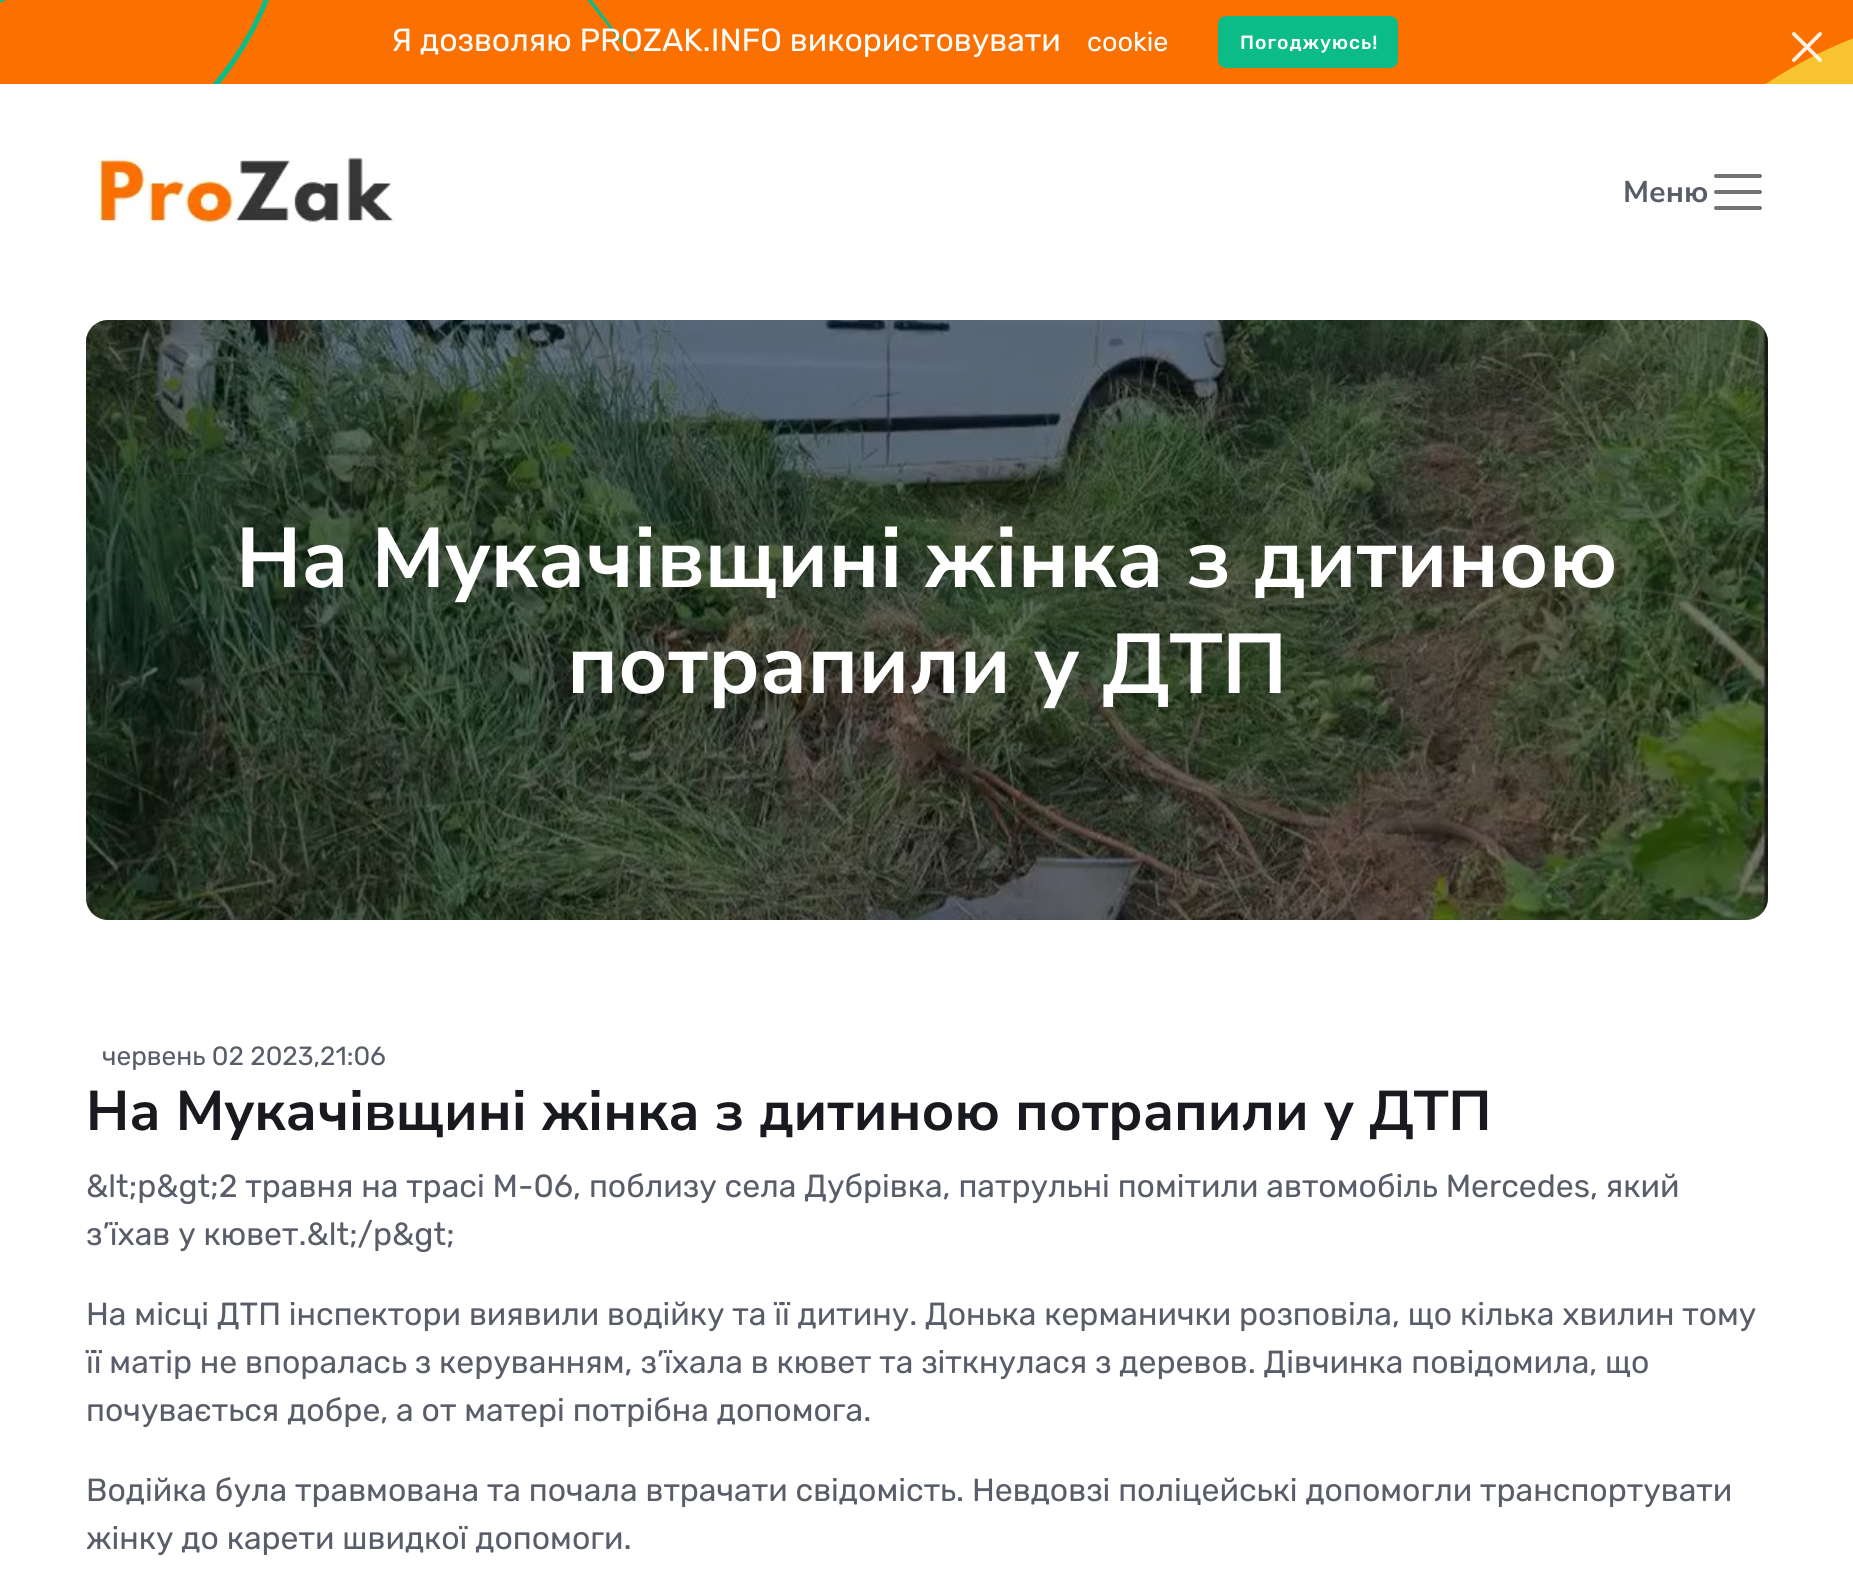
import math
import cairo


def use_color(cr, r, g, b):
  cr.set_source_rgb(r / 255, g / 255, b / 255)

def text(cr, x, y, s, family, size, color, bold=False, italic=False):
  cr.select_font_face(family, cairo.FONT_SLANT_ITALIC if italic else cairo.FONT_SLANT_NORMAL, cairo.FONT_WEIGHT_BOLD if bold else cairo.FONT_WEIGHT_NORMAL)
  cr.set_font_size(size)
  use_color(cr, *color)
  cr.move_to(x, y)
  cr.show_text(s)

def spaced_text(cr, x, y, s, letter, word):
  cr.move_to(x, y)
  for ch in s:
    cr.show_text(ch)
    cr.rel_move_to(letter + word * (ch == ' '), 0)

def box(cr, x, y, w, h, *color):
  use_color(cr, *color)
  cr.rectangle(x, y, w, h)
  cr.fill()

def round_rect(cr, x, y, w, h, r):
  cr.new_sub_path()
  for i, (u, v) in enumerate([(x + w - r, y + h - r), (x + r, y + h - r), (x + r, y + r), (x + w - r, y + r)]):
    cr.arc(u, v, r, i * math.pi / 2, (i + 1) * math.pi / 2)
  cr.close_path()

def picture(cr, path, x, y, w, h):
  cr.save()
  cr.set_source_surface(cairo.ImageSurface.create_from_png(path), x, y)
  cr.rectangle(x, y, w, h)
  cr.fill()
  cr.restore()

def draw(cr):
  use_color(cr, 255, 255, 255)
  cr.paint()
  box(cr, 0, 0, 1853, 84, 252, 112, 0)
  picture(cr, "img_01.png", 0, 0, 1853, 84)
  use_color(cr, 12, 188, 135)
  round_rect(cr, 1219, 17, 178, 50, 7)
  cr.fill_preserve()
  cr.stroke()
  picture(cr, "img_02.png", 1792, 32, 30, 30)
  picture(cr, "img_03.png", 97, 155, 298, 70)
  cr.new_path()
  cr.move_to(1716, 176)
  cr.line_to(1760, 176)
  cr.move_to(1716, 192)
  cr.line_to(1760, 192)
  cr.move_to(1716, 208)
  cr.line_to(1760, 208)
  use_color(cr, 115, 115, 115)
  cr.set_line_width(4)
  cr.set_line_cap(cairo.LINE_CAP_ROUND)
  cr.stroke()
  picture(cr, "img_04.png", 86, 320, 1682, 600)
  use_color(cr, 255, 255, 255)
  round_rect(cr, 86, 320, 1682, 600, 22)
  cr.fill()
  picture(cr, "img_05.png", 86, 320, 1682, 600)
  cr.set_source_rgba(0, 0, 0, 0.5)
  round_rect(cr, 86, 320, 1682, 600, 22)
  cr.fill()
  text(cr, 391, 51, "Я дозволяю PROZAK.INFO використовувати", "Rubik", 32, (255, 255, 255))
  text(cr, 1087, 51, "cookie", "Rubik", 27, (255, 255, 255))
  cr.select_font_face("Rubik Medium")
  cr.set_font_size(19.25)
  spaced_text(cr, 1240, 49, "Погоджуюсь!", 1, 0)
  text(cr, 1623, 202, "Меню", "Nunito Sans", 30, (89, 93, 105), bold=True)
  text(cr, 236, 587, "На Мукачівщині жінка з дитиною", "Nunito Sans", 84.5, (255, 255, 255), bold=True)
  text(cr, 567, 693, "потрапили у ДТП", "Nunito Sans", 84.5, (255, 255, 255), bold=True)
  text(cr, 102, 1065, "червень 02 2023,21:06", "Rubik", 26.25, (89, 93, 105))
  text(cr, 86, 1130, "На Мукачівщині жінка з дитиною потрапили у ДТП", "Nunito Sans", 55.9, (25, 26, 31), bold=True)
  text(cr, 86, 1197, "&lt;p&gt;2 травня на трасі М-06, поблизу села Дубрівка, патрульні помітили автомобіль Mercedes, який", "Rubik", 32, (89, 93, 105))
  text(cr, 86, 1245, "з’їхав у кювет.&lt;/p&gt;", "Rubik", 32, (89, 93, 105))
  text(cr, 86, 1325, "На місці ДТП інспектори виявили водійку та її дитину. Донька керманички розповіла, що кілька хвилин тому", "Rubik", 32, (89, 93, 105))
  text(cr, 86, 1373, "її матір не впоралась з керуванням, з’їхала в кювет та зіткнулася з деревов. Дівчинка повідомила, що", "Rubik", 32, (89, 93, 105))
  text(cr, 86, 1421, "почувається добре, а от матері потрібна допомога.", "Rubik", 32, (89, 93, 105))
  text(cr, 86, 1501, "Водійка була травмована та почала втрачати свідомість. Невдовзі поліцейські допомогли транспортувати", "Rubik", 32, (89, 93, 105))
  text(cr, 86, 1549, "жінку до карети швидкої допомоги.", "Rubik", 32, (89, 93, 105))


surface = cairo.ImageSurface(cairo.FORMAT_RGB24, 1853, 1593)
cr = cairo.Context(surface)
options = cairo.FontOptions()
options.set_hint_metrics(cairo.HINT_METRICS_OFF)
options.set_hint_style(cairo.HINT_STYLE_NONE)
cr.set_font_options(options)
cr.set_miter_limit(4)
draw(cr)
surface.write_to_png("out.png")
